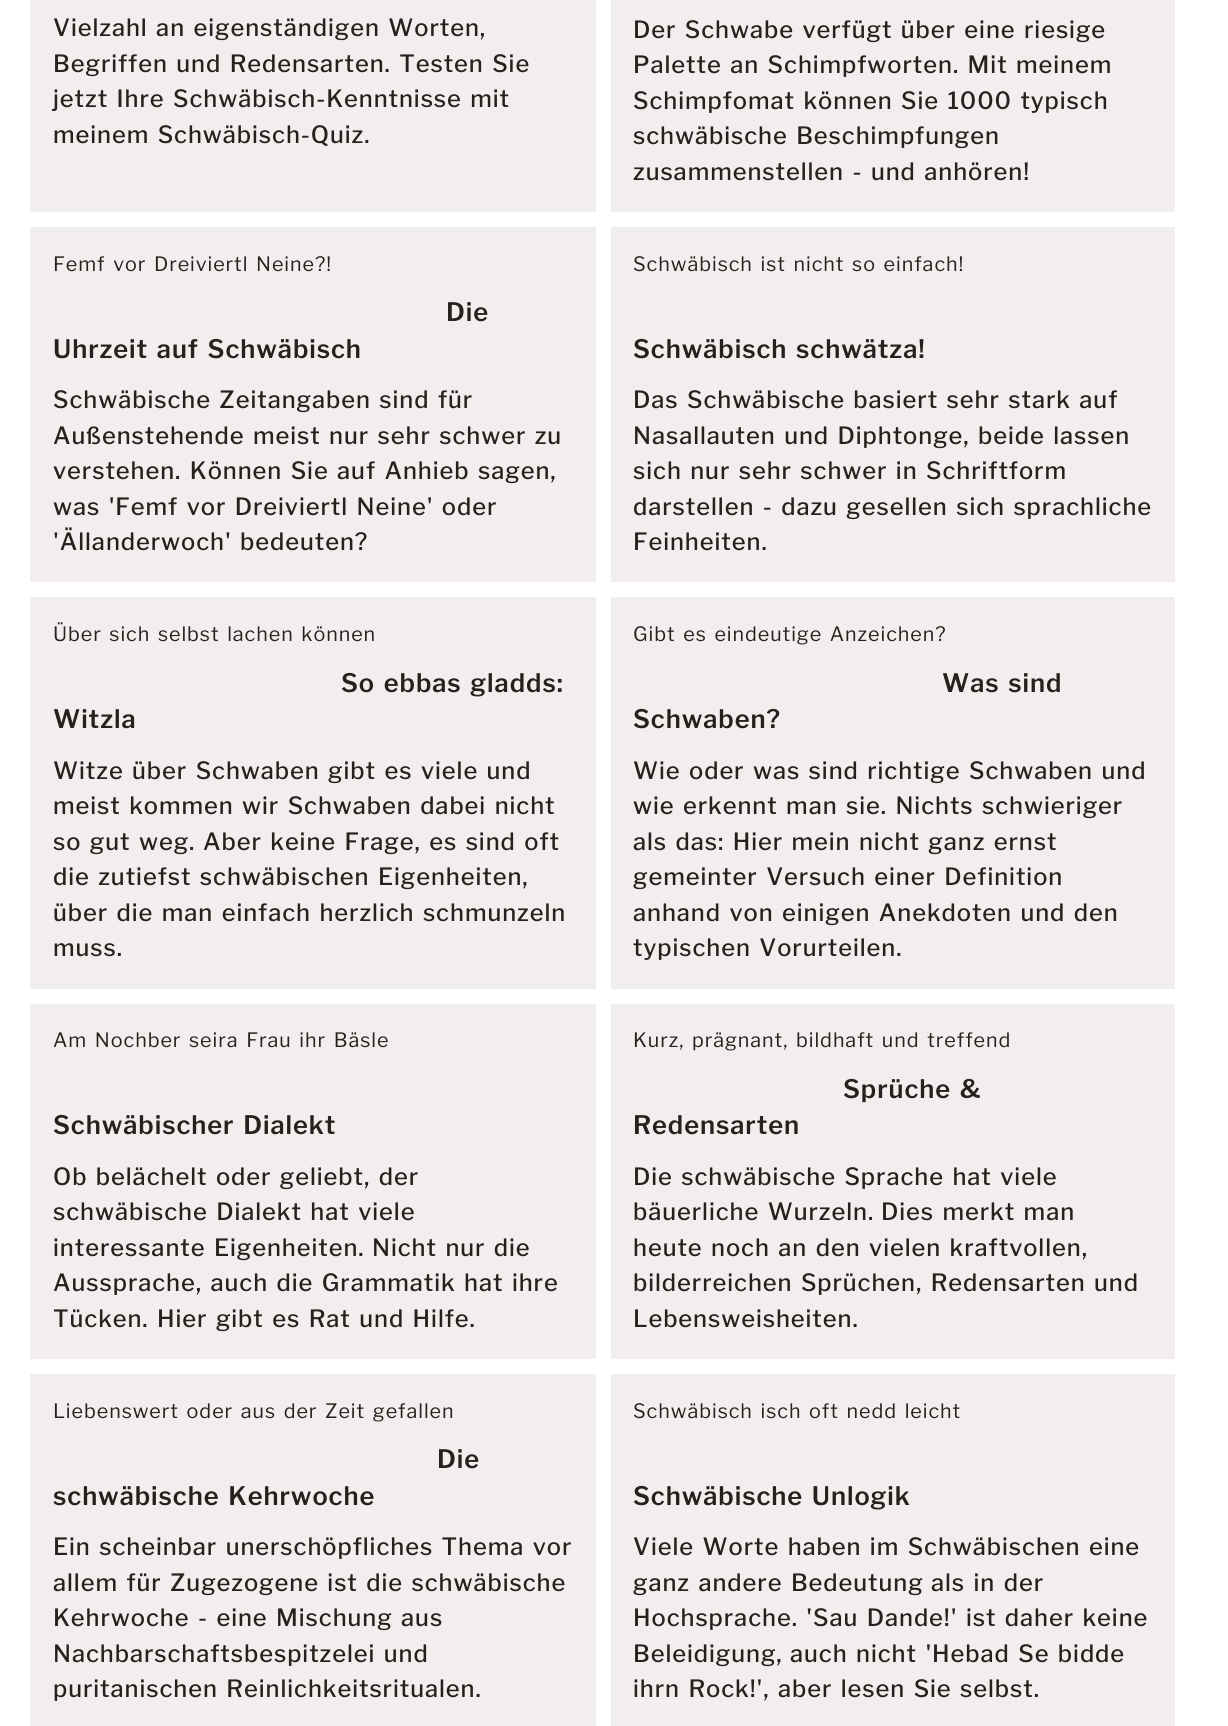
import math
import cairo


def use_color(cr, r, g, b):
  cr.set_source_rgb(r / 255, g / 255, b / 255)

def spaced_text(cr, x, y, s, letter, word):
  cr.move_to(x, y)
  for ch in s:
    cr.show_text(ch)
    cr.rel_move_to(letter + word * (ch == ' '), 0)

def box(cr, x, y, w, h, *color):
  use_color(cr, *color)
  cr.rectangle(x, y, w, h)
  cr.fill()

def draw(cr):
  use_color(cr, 255, 255, 255)
  cr.paint()
  box(cr, 30, 0, 566, 212, 241, 238, 237)
  box(cr, 611, 0, 564, 212, 241, 238, 237)
  box(cr, 30, 227, 566, 355, 241, 238, 237)
  box(cr, 611, 227, 564, 355, 241, 238, 237)
  box(cr, 30, 597, 566, 392, 241, 238, 237)
  box(cr, 611, 597, 564, 392, 241, 238, 237)
  box(cr, 30, 1004, 566, 355, 241, 238, 237)
  box(cr, 611, 1004, 564, 355, 241, 238, 237)
  box(cr, 30, 1374, 566, 352, 241, 238, 237)
  box(cr, 611, 1374, 564, 352, 241, 238, 237)
  cr.select_font_face("Libre Franklin Medium")
  cr.set_font_size(23.7)
  use_color(cr, 37, 33, 30)
  spaced_text(cr, 53, 36, "Vielzahl an eigenständigen Worten,", 0.95, 2.5)
  spaced_text(cr, 53, 72, "Begriffen und Redensarten. Testen Sie", 0.95, 2.5)
  spaced_text(cr, 53, 107, "jetzt Ihre Schwäbisch-Kenntnisse mit", 0.95, 2.5)
  spaced_text(cr, 53, 143, "meinem Schwäbisch-Quiz.", 0.95, 2.5)
  spaced_text(cr, 633, 38, "Der Schwabe verfügt über eine riesige", 0.95, 2.5)
  spaced_text(cr, 633, 73, "Palette an Schimpfworten. Mit meinem", 0.95, 2.5)
  spaced_text(cr, 633, 109, "Schimpfomat können Sie 1000 typisch", 0.95, 2.5)
  spaced_text(cr, 633, 144, "schwäbische Beschimpfungen", 0.95, 2.5)
  spaced_text(cr, 633, 180, "zusammenstellen - und anhören!", 0.95, 2.5)
  cr.select_font_face("Libre Franklin")
  cr.set_font_size(19.75)
  spaced_text(cr, 53, 271, "Femf vor Dreiviertl Neine?!", 0.95, 2.5)
  cr.select_font_face("Libre Franklin SemiBold")
  cr.set_font_size(25.4)
  spaced_text(cr, 446, 321, "Die", 0.95, 0)
  spaced_text(cr, 53, 358, "Uhrzeit auf Schwäbisch", 0.95, 2.5)
  cr.select_font_face("Libre Franklin Medium")
  cr.set_font_size(23.7)
  spaced_text(cr, 53, 408, "Schwäbische Zeitangaben sind für", 0.95, 2.5)
  spaced_text(cr, 53, 444, "Außenstehende meist nur sehr schwer zu", 0.95, 2.5)
  spaced_text(cr, 53, 479, "verstehen. Können Sie auf Anhieb sagen,", 0.95, 2.5)
  spaced_text(cr, 53, 515, "was 'Femf vor Dreiviertl Neine' oder", 0.95, 2.5)
  spaced_text(cr, 53, 550, "'Ällanderwoch' bedeuten?", 0.95, 2.5)
  cr.select_font_face("Libre Franklin")
  cr.set_font_size(19.75)
  spaced_text(cr, 633, 271, "Schwäbisch ist nicht so einfach!", 0.95, 2.5)
  cr.select_font_face("Libre Franklin SemiBold")
  cr.set_font_size(25.4)
  spaced_text(cr, 633, 358, "Schwäbisch schwätza!", 0.95, 2.5)
  cr.select_font_face("Libre Franklin Medium")
  cr.set_font_size(23.7)
  spaced_text(cr, 633, 408, "Das Schwäbische basiert sehr stark auf", 0.95, 2.5)
  spaced_text(cr, 633, 444, "Nasallauten und Diphtonge, beide lassen", 0.95, 2.5)
  spaced_text(cr, 633, 479, "sich nur sehr schwer in Schriftform", 0.95, 2.5)
  spaced_text(cr, 633, 515, "darstellen - dazu gesellen sich sprachliche", 0.95, 2.5)
  spaced_text(cr, 633, 550, "Feinheiten.", 0.95, 0)
  cr.select_font_face("Libre Franklin")
  cr.set_font_size(19.75)
  spaced_text(cr, 53, 641, "Über sich selbst lachen können", 0.95, 2.5)
  cr.select_font_face("Libre Franklin SemiBold")
  cr.set_font_size(25.4)
  spaced_text(cr, 341, 692, "So ebbas gladds:", 0.95, 2.5)
  spaced_text(cr, 53, 728, "Witzla", 0.95, 0)
  cr.select_font_face("Libre Franklin Medium")
  cr.set_font_size(23.7)
  spaced_text(cr, 53, 779, "Witze über Schwaben gibt es viele und", 0.95, 2.5)
  spaced_text(cr, 53, 814, "meist kommen wir Schwaben dabei nicht", 0.95, 2.5)
  spaced_text(cr, 53, 850, "so gut weg.", 0.95, 2.5)
  spaced_text(cr, 203, 850, "Aber keine Frage, es sind oft", 0.95, 2.5)
  spaced_text(cr, 53, 885, "die zutiefst schwäbischen Eigenheiten,", 0.95, 2.5)
  spaced_text(cr, 53, 921, "über die man einfach herzlich schmunzeln", 0.95, 2.5)
  spaced_text(cr, 53, 956, "muss.", 0.95, 0)
  cr.select_font_face("Libre Franklin")
  cr.set_font_size(19.75)
  spaced_text(cr, 633, 641, "Gibt es eindeutige Anzeichen?", 0.95, 2.5)
  cr.select_font_face("Libre Franklin SemiBold")
  cr.set_font_size(25.4)
  spaced_text(cr, 942, 692, "Was sind", 0.95, 2.5)
  spaced_text(cr, 633, 728, "Schwaben?", 0.95, 0)
  cr.select_font_face("Libre Franklin Medium")
  cr.set_font_size(23.7)
  spaced_text(cr, 633, 779, "Wie oder was sind richtige Schwaben und", 0.95, 2.5)
  spaced_text(cr, 633, 814, "wie erkennt man sie. Nichts schwieriger", 0.95, 2.5)
  spaced_text(cr, 633, 850, "als das: Hier mein nicht ganz ernst", 0.95, 2.5)
  spaced_text(cr, 633, 885, "gemeinter Versuch einer Definition", 0.95, 2.5)
  spaced_text(cr, 633, 921, "anhand von einigen Anekdoten und den", 0.95, 2.5)
  spaced_text(cr, 633, 956, "typischen Vorurteilen.", 0.95, 2.5)
  cr.select_font_face("Libre Franklin")
  cr.set_font_size(19.75)
  spaced_text(cr, 53, 1047, "Am Nochber seira Frau ihr Bäsle", 0.95, 2.5)
  cr.select_font_face("Libre Franklin SemiBold")
  cr.set_font_size(25.4)
  spaced_text(cr, 53, 1134, "Schwäbischer Dialekt", 0.95, 2.5)
  cr.select_font_face("Libre Franklin Medium")
  cr.set_font_size(23.7)
  spaced_text(cr, 53, 1185, "Ob belächelt oder geliebt, der", 0.95, 2.5)
  spaced_text(cr, 53, 1220, "schwäbische Dialekt hat viele", 0.95, 2.5)
  spaced_text(cr, 53, 1256, "interessante Eigenheiten.", 0.95, 2.5)
  spaced_text(cr, 372, 1256, "Nicht nur die", 0.95, 2.5)
  spaced_text(cr, 53, 1291, "Aussprache, auch die Grammatik hat ihre", 0.95, 2.5)
  spaced_text(cr, 53, 1327, "Tücken. Hier gibt es Rat und Hilfe.", 0.95, 2.5)
  cr.select_font_face("Libre Franklin")
  cr.set_font_size(19.75)
  spaced_text(cr, 633, 1047, "Kurz, prägnant, bildhaft und treffend", 0.95, 2.5)
  cr.select_font_face("Libre Franklin SemiBold")
  cr.set_font_size(25.4)
  spaced_text(cr, 843, 1098, "Sprüche &", 0.95, 2.5)
  spaced_text(cr, 633, 1134, "Redensarten", 0.95, 0)
  cr.select_font_face("Libre Franklin Medium")
  cr.set_font_size(23.7)
  spaced_text(cr, 633, 1185, "Die schwäbische Sprache hat viele", 0.95, 2.5)
  spaced_text(cr, 633, 1220, "bäuerliche Wurzeln.", 0.95, 2.5)
  spaced_text(cr, 881, 1220, "Dies merkt man", 0.95, 2.5)
  spaced_text(cr, 633, 1256, "heute noch an den vielen kraftvollen,", 0.95, 2.5)
  spaced_text(cr, 633, 1291, "bilderreichen Sprüchen, Redensarten und", 0.95, 2.5)
  spaced_text(cr, 633, 1327, "Lebensweisheiten.", 0.95, 0)
  cr.select_font_face("Libre Franklin")
  cr.set_font_size(19.75)
  spaced_text(cr, 53, 1418, "Liebenswert oder aus der Zeit gefallen", 0.95, 2.5)
  cr.select_font_face("Libre Franklin SemiBold")
  cr.set_font_size(25.4)
  spaced_text(cr, 437, 1468, "Die", 0.95, 0)
  spaced_text(cr, 53, 1505, "schwäbische Kehrwoche", 0.95, 2.5)
  cr.select_font_face("Libre Franklin Medium")
  cr.set_font_size(23.7)
  spaced_text(cr, 53, 1555, "Ein scheinbar unerschöpfliches Thema vor", 0.95, 2.5)
  spaced_text(cr, 53, 1591, "allem für Zugezogene ist die schwäbische", 0.95, 2.5)
  spaced_text(cr, 53, 1626, "Kehrwoche - eine Mischung aus", 0.95, 2.5)
  spaced_text(cr, 53, 1662, "Nachbarschaftsbespitzelei und", 0.95, 2.5)
  spaced_text(cr, 53, 1697, "puritanischen Reinlichkeitsritualen.", 0.95, 2.5)
  cr.select_font_face("Libre Franklin")
  cr.set_font_size(19.75)
  spaced_text(cr, 633, 1418, "Schwäbisch isch oft nedd leicht", 0.95, 2.5)
  cr.select_font_face("Libre Franklin SemiBold")
  cr.set_font_size(25.4)
  spaced_text(cr, 633, 1505, "Schwäbische Unlogik", 0.95, 2.5)
  cr.select_font_face("Libre Franklin Medium")
  cr.set_font_size(23.7)
  spaced_text(cr, 633, 1555, "Viele Worte haben im Schwäbischen eine", 0.95, 2.5)
  spaced_text(cr, 633, 1591, "ganz andere Bedeutung", 0.95, 2.5)
  spaced_text(cr, 931, 1591, "als in der", 0.95, 2.5)
  spaced_text(cr, 633, 1626, "Hochsprache. 'Sau Dande!' ist daher keine", 0.95, 2.5)
  spaced_text(cr, 633, 1662, "Beleidigung,", 0.95, 0)
  spaced_text(cr, 790, 1662, "auch nicht 'Hebad Se bidde", 0.95, 2.5)
  spaced_text(cr, 633, 1697, "ihrn Rock!', aber lesen Sie selbst.", 0.95, 2.5)


surface = cairo.ImageSurface(cairo.FORMAT_RGB24, 1228, 1726)
cr = cairo.Context(surface)
options = cairo.FontOptions()
options.set_hint_metrics(cairo.HINT_METRICS_OFF)
options.set_hint_style(cairo.HINT_STYLE_NONE)
cr.set_font_options(options)
cr.set_miter_limit(4)
draw(cr)
surface.write_to_png("out.png")
